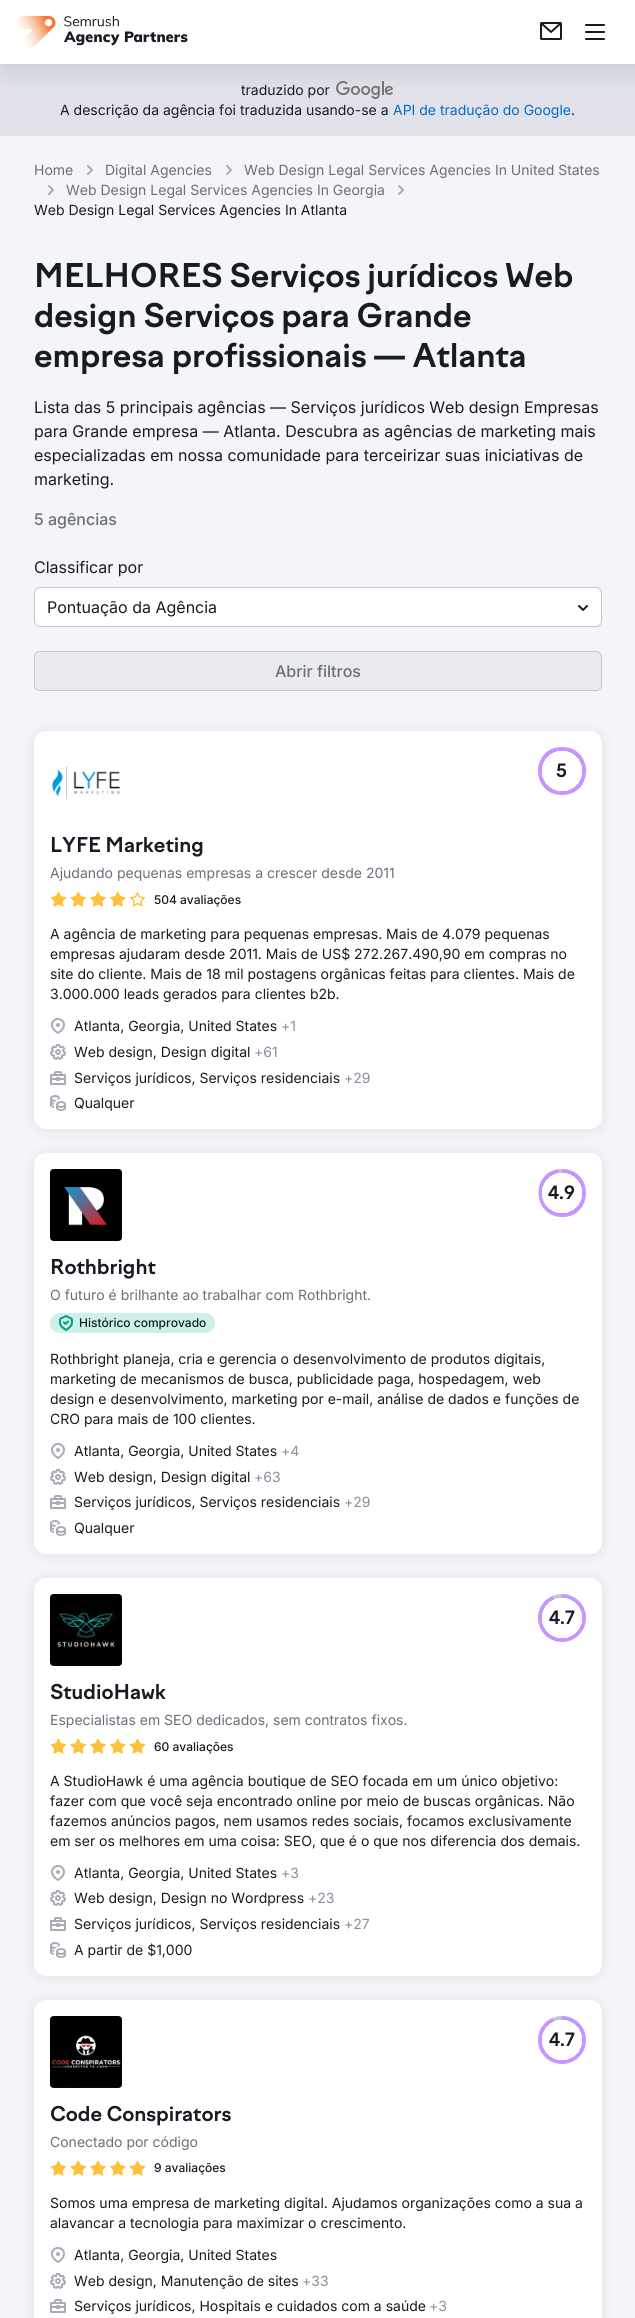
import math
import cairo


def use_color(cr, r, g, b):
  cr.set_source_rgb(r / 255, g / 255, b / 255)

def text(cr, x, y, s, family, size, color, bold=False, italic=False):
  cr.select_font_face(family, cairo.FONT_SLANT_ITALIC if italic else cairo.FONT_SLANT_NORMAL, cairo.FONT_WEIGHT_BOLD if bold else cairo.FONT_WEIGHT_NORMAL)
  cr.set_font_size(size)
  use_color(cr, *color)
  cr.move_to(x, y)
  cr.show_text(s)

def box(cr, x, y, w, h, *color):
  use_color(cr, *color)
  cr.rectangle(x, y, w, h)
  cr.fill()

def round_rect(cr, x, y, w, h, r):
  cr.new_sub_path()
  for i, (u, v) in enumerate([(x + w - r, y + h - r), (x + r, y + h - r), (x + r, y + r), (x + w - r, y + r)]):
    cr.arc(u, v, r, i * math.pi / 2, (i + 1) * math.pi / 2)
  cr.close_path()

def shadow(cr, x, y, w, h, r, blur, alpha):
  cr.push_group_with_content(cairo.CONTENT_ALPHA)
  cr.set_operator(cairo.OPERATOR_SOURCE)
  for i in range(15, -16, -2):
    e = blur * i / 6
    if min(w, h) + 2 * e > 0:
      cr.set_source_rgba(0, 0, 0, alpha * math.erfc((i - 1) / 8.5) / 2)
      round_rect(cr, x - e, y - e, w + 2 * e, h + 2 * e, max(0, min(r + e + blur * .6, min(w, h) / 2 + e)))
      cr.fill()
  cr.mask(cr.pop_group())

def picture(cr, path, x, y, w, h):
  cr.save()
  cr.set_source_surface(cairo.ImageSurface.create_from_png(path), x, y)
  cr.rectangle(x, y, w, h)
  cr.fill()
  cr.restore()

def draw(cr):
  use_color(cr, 255, 255, 255)
  cr.paint()
  box(cr, 0, 64, 635, 72, 224, 225, 233)
  picture(cr, "img_04.png", 336, 81, 58, 18)
  cr.save()
  cr.rectangle(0, 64, 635, 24)
  cr.clip()
  use_color(cr, 137, 141, 154)
  shadow(cr, 5, 5, 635, 64, 0, 12.5, 0.3)
  cr.restore()
  picture(cr, "img_01.png", 16, 16, 172, 32)
  picture(cr, "img_02.png", 540, 22, 22, 18)
  picture(cr, "img_03.png", 585, 24, 20, 16)
  box(cr, 0, 136, 635, 2182, 244, 245, 249)
  picture(cr, "img_05.png", 87, 165, 6, 10)
  picture(cr, "img_05.png", 226, 165, 6, 10)
  picture(cr, "img_05.png", 48, 185, 6, 10)
  picture(cr, "img_05.png", 398, 185, 6, 10)
  use_color(cr, 255, 255, 255)
  round_rect(cr, 34.5, 587.5, 567, 39, 5.5)
  cr.fill_preserve()
  use_color(cr, 196, 199, 207)
  cr.set_line_width(1)
  cr.stroke()
  picture(cr, "img_06.png", 578, 605, 10, 6)
  use_color(cr, 233, 235, 240)
  round_rect(cr, 34.5, 651.5, 567, 39, 5.5)
  cr.fill_preserve()
  use_color(cr, 196, 199, 207)
  cr.stroke()
  use_color(cr, 25, 27, 35)
  shadow(cr, 34, 732, 568, 398, 12, 6, 0.1)
  use_color(cr, 255, 255, 255)
  round_rect(cr, 34, 731, 568, 398, 12)
  cr.fill()
  picture(cr, "img_07.png", 51, 766, 69, 34)
  use_color(cr, 198, 149, 255)
  cr.new_path()
  cr.move_to(562, 771)
  cr.line_to(562, 747)
  cr.curve_to(594, 747, 594, 795, 562, 795)
  cr.curve_to(530, 795, 530, 747, 562, 747)
  cr.close_path()
  cr.fill()
  gradient = cairo.RadialGradient(562, 771, 0, 562, 771, 24)
  gradient.add_color_stop_rgba(0.84, 1, 1, 1, 1)
  gradient.add_color_stop_rgba(0.85, 1, 1, 1, 0)
  gradient.add_color_stop_rgba(1, 0, 0, 0, 0)
  cr.set_source(gradient)
  cr.rectangle(542, 751, 40, 40)
  cr.fill()
  picture(cr, "img_08.png", 50, 891, 96, 16)
  picture(cr, "img_09.png", 51, 1018, 14, 16)
  picture(cr, "img_10.png", 50, 1044, 16, 16)
  picture(cr, "img_11.png", 50, 1071, 16, 14)
  picture(cr, "img_12.png", 50, 1095, 16, 16)
  use_color(cr, 25, 27, 35)
  shadow(cr, 34, 1154, 568, 401, 12, 6, 0.1)
  use_color(cr, 255, 255, 255)
  round_rect(cr, 34, 1153, 568, 401, 12)
  cr.fill()
  picture(cr, "img_13.png", 50, 1169, 72, 72)
  use_color(cr, 198, 149, 255)
  cr.new_path()
  cr.move_to(562, 1193)
  cr.line_to(562, 1169)
  cr.curve_to(593, 1169, 594, 1215, 564, 1217)
  cr.curve_to(533, 1219, 529, 1173, 559, 1169)
  cr.close_path()
  cr.fill()
  use_color(cr, 196, 199, 207)
  cr.new_path()
  cr.move_to(562, 1193)
  cr.line_to(559, 1169)
  cr.line_to(562, 1169)
  cr.close_path()
  cr.fill()
  gradient = cairo.RadialGradient(562, 1193, 0, 562, 1193, 24)
  gradient.add_color_stop_rgba(0.84, 1, 1, 1, 1)
  gradient.add_color_stop_rgba(0.85, 1, 1, 1, 0)
  gradient.add_color_stop_rgba(1, 0, 0, 0, 0)
  cr.set_source(gradient)
  cr.rectangle(542, 1173, 40, 40)
  cr.fill()
  use_color(cr, 204, 241, 234)
  round_rect(cr, 50, 1313, 165, 20, 10)
  cr.fill()
  picture(cr, "img_14.png", 59, 1315, 14, 16)
  picture(cr, "img_09.png", 51, 1443, 14, 16)
  picture(cr, "img_10.png", 50, 1469, 16, 16)
  picture(cr, "img_11.png", 50, 1495, 16, 14)
  picture(cr, "img_12.png", 50, 1520, 16, 16)
  use_color(cr, 25, 27, 35)
  shadow(cr, 34, 1579, 568, 398, 12, 6, 0.1)
  use_color(cr, 255, 255, 255)
  round_rect(cr, 34, 1578, 568, 398, 12)
  cr.fill()
  picture(cr, "img_15.png", 50, 1594, 72, 72)
  picture(cr, "img_16.png", 538, 1594, 48, 48)
  gradient = cairo.RadialGradient(562, 1618, 0, 562, 1618, 24)
  gradient.add_color_stop_rgba(0.84, 1, 1, 1, 1)
  gradient.add_color_stop_rgba(0.85, 1, 1, 1, 0)
  gradient.add_color_stop_rgba(1, 0, 0, 0, 0)
  cr.set_source(gradient)
  cr.rectangle(542, 1598, 40, 40)
  cr.fill()
  picture(cr, "img_17.png", 50, 1738, 96, 16)
  picture(cr, "img_09.png", 51, 1865, 14, 16)
  picture(cr, "img_10.png", 50, 1890, 16, 16)
  picture(cr, "img_11.png", 50, 1917, 16, 14)
  picture(cr, "img_12.png", 50, 1942, 16, 16)
  use_color(cr, 25, 27, 35)
  shadow(cr, 34, 2001, 568, 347, 12, 6, 0.1)
  use_color(cr, 255, 255, 255)
  round_rect(cr, 34, 2000, 568, 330, 12)
  cr.fill()
  picture(cr, "img_18.png", 50, 2016, 72, 72)
  picture(cr, "img_16.png", 538, 2016, 48, 48)
  gradient = cairo.RadialGradient(562, 2040, 0, 562, 2040, 24)
  gradient.add_color_stop_rgba(0.84, 1, 1, 1, 1)
  gradient.add_color_stop_rgba(0.85, 1, 1, 1, 0)
  gradient.add_color_stop_rgba(1, 0, 0, 0, 0)
  cr.set_source(gradient)
  cr.rectangle(542, 2020, 40, 40)
  cr.fill()
  picture(cr, "img_17.png", 50, 2160, 96, 16)
  picture(cr, "img_09.png", 51, 2247, 14, 16)
  picture(cr, "img_10.png", 50, 2273, 16, 16)
  picture(cr, "img_11.png", 50, 2299, 16, 14)
  text(cr, 241, 95, "traduzido por", "Inter", 14, (25, 27, 35))
  text(cr, 60, 115, "A descrição da agência foi traduzida usando-se a", "Inter", 14, (25, 27, 35))
  text(cr, 393, 115, "API de tradução do Google", "Inter", 14, (0, 109, 202))
  text(cr, 571, 115, ".", "Inter", 14, (25, 27, 35))
  text(cr, 34, 175, "Home", "Inter", 14, (108, 110, 121))
  text(cr, 105, 175, "Digital Agencies", "Inter", 14, (108, 110, 121))
  text(cr, 244, 175, "Web Design Legal Services Agencies In United States", "Inter", 14, (108, 110, 121))
  text(cr, 66, 195, "Web Design Legal Services Agencies In Georgia", "Inter", 14, (108, 110, 121))
  text(cr, 34, 215, "Web Design Legal Services Agencies In Atlanta", "Inter", 14, (25, 27, 35))
  text(cr, 34, 287, "MELHORES Serviços jurídicos Web", "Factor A", 32, (25, 27, 35), bold=True)
  text(cr, 34, 327, "design Serviços para Grande", "Factor A", 32, (25, 27, 35), bold=True)
  text(cr, 34, 367, "empresa profissionais — Atlanta", "Factor A", 32, (25, 27, 35), bold=True)
  text(cr, 34, 413, "Lista das 5 principais agências — Serviços jurídicos Web design Empresas", "Inter", 16, (25, 27, 35))
  text(cr, 34, 437, "para Grande empresa — Atlanta. Descubra as agências de marketing mais", "Inter", 16, (25, 27, 35))
  text(cr, 34, 461, "especializadas em nossa comunidade para terceirizar suas iniciativas de", "Inter", 16, (25, 27, 35))
  text(cr, 34, 485, "marketing.", "Inter", 16, (25, 27, 35))
  text(cr, 34, 525, "5 agências", "Inter Medium", 16, (108, 110, 121))
  text(cr, 34, 573, "Classificar por", "Inter", 16, (25, 27, 35))
  text(cr, 47, 613, "Pontuação da Agência", "Inter", 16, (25, 27, 35))
  text(cr, 275, 677, "Abrir filtros", "Inter Medium", 16, (108, 110, 121))
  text(cr, 556, 777, "5", "Factor A", 18, (25, 27, 35), bold=True)
  text(cr, 50, 852, "LYFE Marketing", "Factor A", 20, (25, 27, 35), bold=True)
  text(cr, 50, 878, "Ajudando pequenas empresas a crescer desde 2011", "Inter", 14, (108, 110, 121))
  text(cr, 154, 904, "504 avaliações", "Inter Medium", 12, (25, 27, 35))
  text(cr, 50, 939, "A agência de marketing para pequenas empresas. Mais de 4.079 pequenas", "Inter", 14, (25, 27, 35))
  text(cr, 50, 959, "empresas ajudaram desde 2011. Mais de US$ 272.267.490,90 em compras no", "Inter", 14, (25, 27, 35))
  text(cr, 50, 979, "site do cliente. Mais de 18 mil postagens orgânicas feitas para clientes. Mais de", "Inter", 14, (25, 27, 35))
  text(cr, 50, 999, "3.000.000 leads gerados para clientes b2b.", "Inter", 14, (25, 27, 35))
  text(cr, 74, 1031, "Atlanta, Georgia, United States", "Inter", 14, (25, 27, 35))
  text(cr, 281, 1031, "+1", "Inter", 14, (138, 142, 155))
  text(cr, 74, 1057, "Web design, Design digital", "Inter", 14, (25, 27, 35))
  text(cr, 254, 1057, "+61", "Inter", 14, (138, 142, 155))
  text(cr, 74, 1083, "Serviços jurídicos, Serviços residenciais", "Inter", 14, (25, 27, 35))
  text(cr, 344, 1083, "+29", "Inter", 14, (138, 142, 155))
  text(cr, 74, 1108, "Qualquer", "Inter", 14, (25, 27, 35))
  text(cr, 548, 1199, "4.9", "Factor A", 18, (25, 27, 35), bold=True)
  text(cr, 50, 1274, "Rothbright", "Factor A", 20, (25, 27, 35), bold=True)
  text(cr, 50, 1300, "O futuro é brilhante ao trabalhar com Rothbright.", "Inter", 14, (108, 110, 121))
  text(cr, 79, 1327, "Histórico comprovado", "Inter Medium", 12, (25, 27, 35))
  text(cr, 50, 1364, "Rothbright planeja, cria e gerencia o desenvolvimento de produtos digitais,", "Inter", 14, (25, 27, 35))
  text(cr, 50, 1384, "marketing de mecanismos de busca, publicidade paga, hospedagem, web", "Inter", 14, (25, 27, 35))
  text(cr, 50, 1404, "design e desenvolvimento, marketing por e-mail, análise de dados e funções de", "Inter", 14, (25, 27, 35))
  text(cr, 50, 1424, "CRO para mais de 100 clientes.", "Inter", 14, (25, 27, 35))
  text(cr, 74, 1456, "Atlanta, Georgia, United States", "Inter", 14, (25, 27, 35))
  text(cr, 281, 1456, "+4", "Inter", 14, (138, 142, 155))
  text(cr, 74, 1482, "Web design, Design digital", "Inter", 14, (25, 27, 35))
  text(cr, 254, 1482, "+63", "Inter", 14, (138, 142, 155))
  text(cr, 74, 1507, "Serviços jurídicos, Serviços residenciais", "Inter", 14, (25, 27, 35))
  text(cr, 344, 1507, "+29", "Inter", 14, (138, 142, 155))
  text(cr, 74, 1533, "Qualquer", "Inter", 14, (25, 27, 35))
  text(cr, 549, 1624, "4.7", "Factor A", 18, (25, 27, 35), bold=True)
  text(cr, 50, 1699, "StudioHawk", "Factor A", 20, (25, 27, 35), bold=True)
  text(cr, 50, 1725, "Especialistas em SEO dedicados, sem contratos fixos.", "Inter", 14, (108, 110, 121))
  text(cr, 154, 1751, "60 avaliações", "Inter Medium", 12, (25, 27, 35))
  text(cr, 50, 1786, "A StudioHawk é uma agência boutique de SEO focada em um único objetivo:", "Inter", 14, (25, 27, 35))
  text(cr, 50, 1806, "fazer com que você seja encontrado online por meio de buscas orgânicas. Não", "Inter", 14, (25, 27, 35))
  text(cr, 50, 1826, "fazemos anúncios pagos, nem usamos redes sociais, focamos exclusivamente", "Inter", 14, (25, 27, 35))
  text(cr, 50, 1846, "em ser os melhores em uma coisa: SEO, que é o que nos diferencia dos demais.", "Inter", 14, (25, 27, 35))
  text(cr, 74, 1878, "Atlanta, Georgia, United States", "Inter", 14, (25, 27, 35))
  text(cr, 281, 1878, "+3", "Inter", 14, (138, 142, 155))
  text(cr, 74, 1903, "Web design, Design no Wordpress", "Inter", 14, (25, 27, 35))
  text(cr, 308, 1903, "+23", "Inter", 14, (138, 142, 155))
  text(cr, 74, 1929, "Serviços jurídicos, Serviços residenciais", "Inter", 14, (25, 27, 35))
  text(cr, 344, 1929, "+27", "Inter", 14, (138, 142, 155))
  text(cr, 74, 1955, "A partir de $1,000", "Inter", 14, (25, 27, 35))
  text(cr, 549, 2046, "4.7", "Factor A", 18, (25, 27, 35), bold=True)
  text(cr, 50, 2121, "Code Conspirators", "Factor A", 20, (25, 27, 35), bold=True)
  text(cr, 50, 2147, "Conectado por código", "Inter", 14, (108, 110, 121))
  text(cr, 154, 2172, "9 avaliações", "Inter Medium", 12, (25, 27, 35))
  text(cr, 50, 2208, "Somos uma empresa de marketing digital. Ajudamos organizações como a sua a", "Inter", 14, (25, 27, 35))
  text(cr, 50, 2228, "alavancar a tecnologia para maximizar o crescimento.", "Inter", 14, (25, 27, 35))
  text(cr, 74, 2260, "Atlanta, Georgia, United States", "Inter", 14, (25, 27, 35))
  text(cr, 74, 2286, "Web design, Manutenção de sites", "Inter", 14, (25, 27, 35))
  text(cr, 302, 2286, "+33", "Inter", 14, (138, 142, 155))
  text(cr, 74, 2311, "Serviços jurídicos, Hospitais e cuidados com a saúde", "Inter", 14, (25, 27, 35))
  text(cr, 429, 2311, "+3", "Inter", 14, (138, 142, 155))


surface = cairo.ImageSurface(cairo.FORMAT_RGB24, 635, 2318)
cr = cairo.Context(surface)
options = cairo.FontOptions()
options.set_hint_metrics(cairo.HINT_METRICS_OFF)
options.set_hint_style(cairo.HINT_STYLE_NONE)
cr.set_font_options(options)
cr.set_miter_limit(4)
draw(cr)
surface.write_to_png("out.png")
